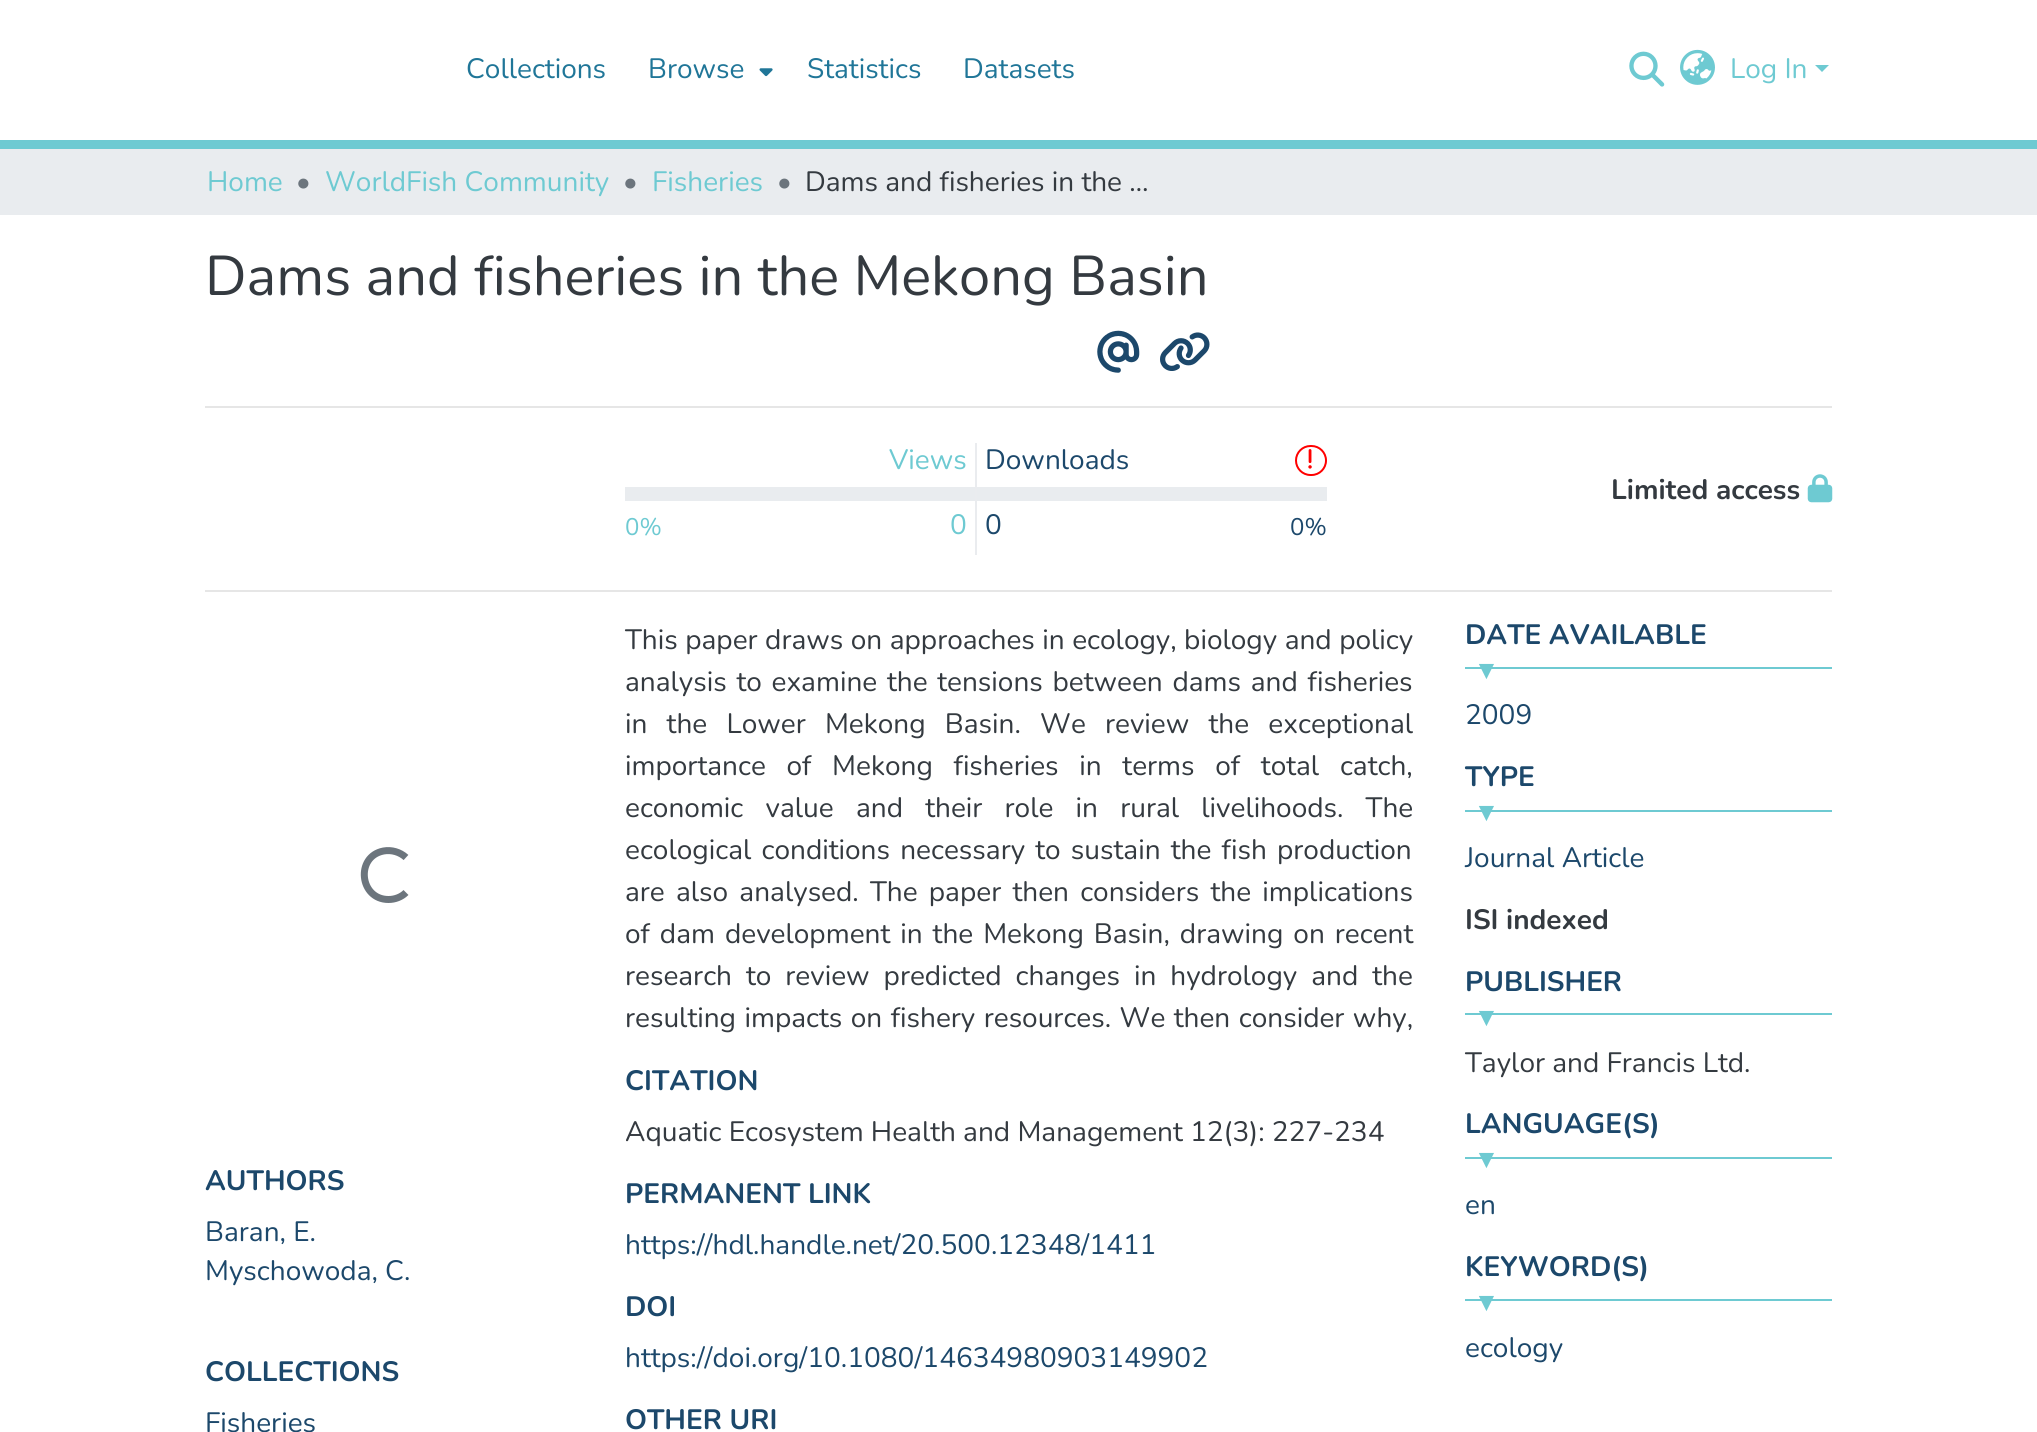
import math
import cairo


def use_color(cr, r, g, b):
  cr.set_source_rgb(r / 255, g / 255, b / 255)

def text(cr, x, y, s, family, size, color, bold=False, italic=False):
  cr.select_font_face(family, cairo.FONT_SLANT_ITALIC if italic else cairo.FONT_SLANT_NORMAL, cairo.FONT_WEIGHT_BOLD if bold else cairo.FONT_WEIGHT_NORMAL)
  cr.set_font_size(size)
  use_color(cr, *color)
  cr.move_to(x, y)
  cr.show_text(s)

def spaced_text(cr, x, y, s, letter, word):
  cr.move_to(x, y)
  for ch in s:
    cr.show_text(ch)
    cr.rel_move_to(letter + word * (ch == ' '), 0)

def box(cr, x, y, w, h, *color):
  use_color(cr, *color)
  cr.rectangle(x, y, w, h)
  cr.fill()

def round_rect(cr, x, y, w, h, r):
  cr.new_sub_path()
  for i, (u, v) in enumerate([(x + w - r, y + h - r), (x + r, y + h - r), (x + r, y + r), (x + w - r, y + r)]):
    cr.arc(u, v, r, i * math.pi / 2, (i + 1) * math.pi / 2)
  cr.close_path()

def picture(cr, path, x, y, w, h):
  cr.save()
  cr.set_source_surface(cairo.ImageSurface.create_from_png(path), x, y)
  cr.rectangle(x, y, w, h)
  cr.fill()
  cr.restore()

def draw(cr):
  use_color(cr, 255, 255, 255)
  cr.paint()
  box(cr, 0, 140, 2037, 9, 110, 202, 210)
  picture(cr, "img_01.png", 759, 68, 14, 9)
  picture(cr, "img_02.png", 1629, 51, 36, 36)
  picture(cr, "img_03.png", 1680, 49, 35, 36)
  cr.new_path()
  cr.move_to(1815, 65)
  cr.line_to(1829, 65)
  cr.line_to(1822, 72)
  cr.close_path()
  cr.fill()
  box(cr, 0, 149, 2037, 66, 233, 236, 239)
  picture(cr, "img_04.png", 1097, 330, 43, 43)
  picture(cr, "img_05.png", 1160, 332, 50, 39)
  box(cr, 205, 406, 1627, 2, 230, 230, 230)
  box(cr, 625, 487, 350, 14, 233, 236, 239)
  box(cr, 975, 443, 2, 112, 234, 236, 239)
  round_rect(cr, 1296, 446, 30, 29, 14.5)
  use_color(cr, 255, 0, 0)
  cr.stroke()
  picture(cr, "img_06.png", 1308, 449, 4, 20)
  box(cr, 977, 487, 350, 14, 233, 236, 239)
  picture(cr, "img_07.png", 1807, 474, 26, 29)
  box(cr, 205, 590, 1627, 2, 230, 230, 230)
  cr.new_path()
  cr.move_to(406, 892.5)
  cr.curve_to(401.5, 897, 395, 899.5, 388.5, 899.5)
  cr.curve_to(359.5, 899.5, 355, 856.5, 383.5, 851)
  cr.curve_to(391.5, 849.5, 400, 852, 406, 857.5)
  use_color(cr, 108, 117, 125)
  cr.set_line_width(7)
  cr.stroke()
  box(cr, 1465, 667, 367, 2, 110, 202, 210)
  box(cr, 1465, 810, 367, 2, 110, 202, 210)
  box(cr, 1465, 1013, 367, 2, 110, 202, 210)
  box(cr, 1465, 1157, 367, 2, 110, 202, 210)
  box(cr, 1465, 1299, 367, 2, 110, 202, 210)
  text(cr, 466, 78, "Collections", "Nunito", 28, (32, 118, 152))
  text(cr, 648, 78, "Browse", "Nunito", 28, (32, 118, 152))
  text(cr, 807, 78, "Statistics", "Nunito", 28, (32, 118, 152))
  text(cr, 963, 78, "Datasets", "Nunito", 28, (32, 118, 152))
  text(cr, 1730, 78, "Log In", "Nunito", 28, (110, 202, 210))
  text(cr, 207, 191, "Home", "Nunito", 28, (110, 202, 210))
  text(cr, 296, 191, "•", "Nunito", 28, (108, 117, 125))
  text(cr, 325, 191, "WorldFish Community", "Nunito", 28, (110, 202, 210))
  text(cr, 623, 191, "•", "Nunito", 28, (108, 117, 125))
  text(cr, 652, 191, "Fisheries", "Nunito", 28, (110, 202, 210))
  text(cr, 777, 191, "•", "Nunito", 28, (108, 117, 125))
  text(cr, 805, 191, "Dams and fisheries in the …", "Nunito", 28, (52, 58, 64))
  text(cr, 205, 295, "Dams and fisheries in the Mekong Basin", "Nunito", 56, (52, 58, 64))
  text(cr, 889, 469, "Views", "Nunito", 28, (110, 202, 210))
  text(cr, 625, 535, "0%", "Nunito", 24, (110, 202, 210))
  text(cr, 950, 534, "0", "Nunito", 28, (110, 202, 210))
  text(cr, 985, 469, "Downloads", "Nunito", 28, (28, 72, 107))
  text(cr, 985, 534, "0", "Nunito", 28, (28, 72, 107))
  text(cr, 1290, 535, "0%", "Nunito", 24, (28, 72, 107))
  text(cr, 1611, 499, "Limited access", "Nunito", 28, (52, 58, 64), bold=True)
  text(cr, 205, 1190, "AUTHORS", "Nunito", 28, (28, 72, 107), bold=True)
  text(cr, 205, 1241, "Baran, E.", "Nunito", 28, (28, 72, 107))
  text(cr, 205, 1280, "Myschowoda, C.", "Nunito", 28, (28, 72, 107))
  text(cr, 205, 1381, "COLLECTIONS", "Nunito", 28, (28, 72, 107), bold=True)
  text(cr, 205, 1432, "Fisheries", "Nunito", 28, (28, 72, 107))
  use_color(cr, 52, 58, 64)
  spaced_text(cr, 625, 649, "This paper draws on approaches in ecology, biology and policy", 0, 0.25)
  spaced_text(cr, 625, 691, "analysis to examine the tensions between dams and fisheries", 0, 2.5)
  spaced_text(cr, 625, 733, "in the Lower Mekong Basin. We review the exceptional", 0, 12)
  spaced_text(cr, 625, 775, "importance of Mekong fisheries in terms of total catch,", 0, 13.5)
  spaced_text(cr, 625, 817, "economic value and their role in rural livelihoods. The", 0, 15)
  spaced_text(cr, 625, 859, "ecological conditions necessary to sustain the fish production", 0, 3)
  spaced_text(cr, 625, 901, "are also analysed. The paper then considers the implications", 0, 4)
  spaced_text(cr, 625, 943, "of dam development in the Mekong Basin, drawing on recent", 0, 2.75)
  spaced_text(cr, 625, 985, "research to review predicted changes in hydrology and the", 0, 6.75)
  spaced_text(cr, 625, 1027, "resulting impacts on fishery resources. We then consider why,", 0, 1.25)
  text(cr, 625, 1090, "CITATION", "Nunito", 28, (28, 72, 107), bold=True)
  text(cr, 625, 1141, "Aquatic Ecosystem Health and Management 12(3): 227-234", "Nunito", 28, (52, 58, 64))
  text(cr, 625, 1203, "PERMANENT LINK", "Nunito", 28, (28, 72, 107), bold=True)
  text(cr, 625, 1254, "https://hdl.handle.net/20.500.12348/1411", "Nunito", 28, (28, 72, 107))
  text(cr, 625, 1316, "DOI", "Nunito", 28, (28, 72, 107), bold=True)
  text(cr, 625, 1367, "https://doi.org/10.1080/14634980903149902", "Nunito", 28, (28, 72, 107))
  text(cr, 625, 1429, "OTHER URI", "Nunito", 28, (28, 72, 107), bold=True)
  text(cr, 1465, 644, "DATE AVAILABLE", "Nunito", 28, (28, 72, 107), bold=True)
  text(cr, 1479, 679, "▾", "DejaVu Sans", 28, (110, 202, 210), bold=True)
  text(cr, 1465, 724, "2009", "Nunito", 28, (28, 72, 107))
  text(cr, 1465, 786, "TYPE", "Nunito", 28, (28, 72, 107), bold=True)
  text(cr, 1479, 821, "▾", "DejaVu Sans", 28, (110, 202, 210), bold=True)
  text(cr, 1465, 867, "Journal Article", "Nunito", 28, (28, 72, 107))
  text(cr, 1465, 929, "ISI indexed", "Nunito", 28, (52, 58, 64), bold=True)
  text(cr, 1465, 991, "PUBLISHER", "Nunito", 28, (28, 72, 107), bold=True)
  text(cr, 1479, 1026, "▾", "DejaVu Sans", 28, (110, 202, 210), bold=True)
  text(cr, 1465, 1072, "Taylor and Francis Ltd.", "Nunito", 28, (52, 58, 64))
  text(cr, 1465, 1133, "LANGUAGE(S)", "Nunito", 28, (28, 72, 107), bold=True)
  text(cr, 1479, 1168, "▾", "DejaVu Sans", 28, (110, 202, 210), bold=True)
  text(cr, 1465, 1214, "en", "Nunito", 28, (28, 72, 107))
  text(cr, 1465, 1276, "KEYWORD(S)", "Nunito", 28, (28, 72, 107), bold=True)
  text(cr, 1479, 1311, "▾", "DejaVu Sans", 28, (110, 202, 210), bold=True)
  text(cr, 1465, 1357, "ecology", "Nunito", 28, (28, 72, 107))


surface = cairo.ImageSurface(cairo.FORMAT_RGB24, 2037, 1432)
cr = cairo.Context(surface)
options = cairo.FontOptions()
options.set_hint_metrics(cairo.HINT_METRICS_OFF)
options.set_hint_style(cairo.HINT_STYLE_NONE)
cr.set_font_options(options)
cr.set_miter_limit(4)
draw(cr)
surface.write_to_png("out.png")
